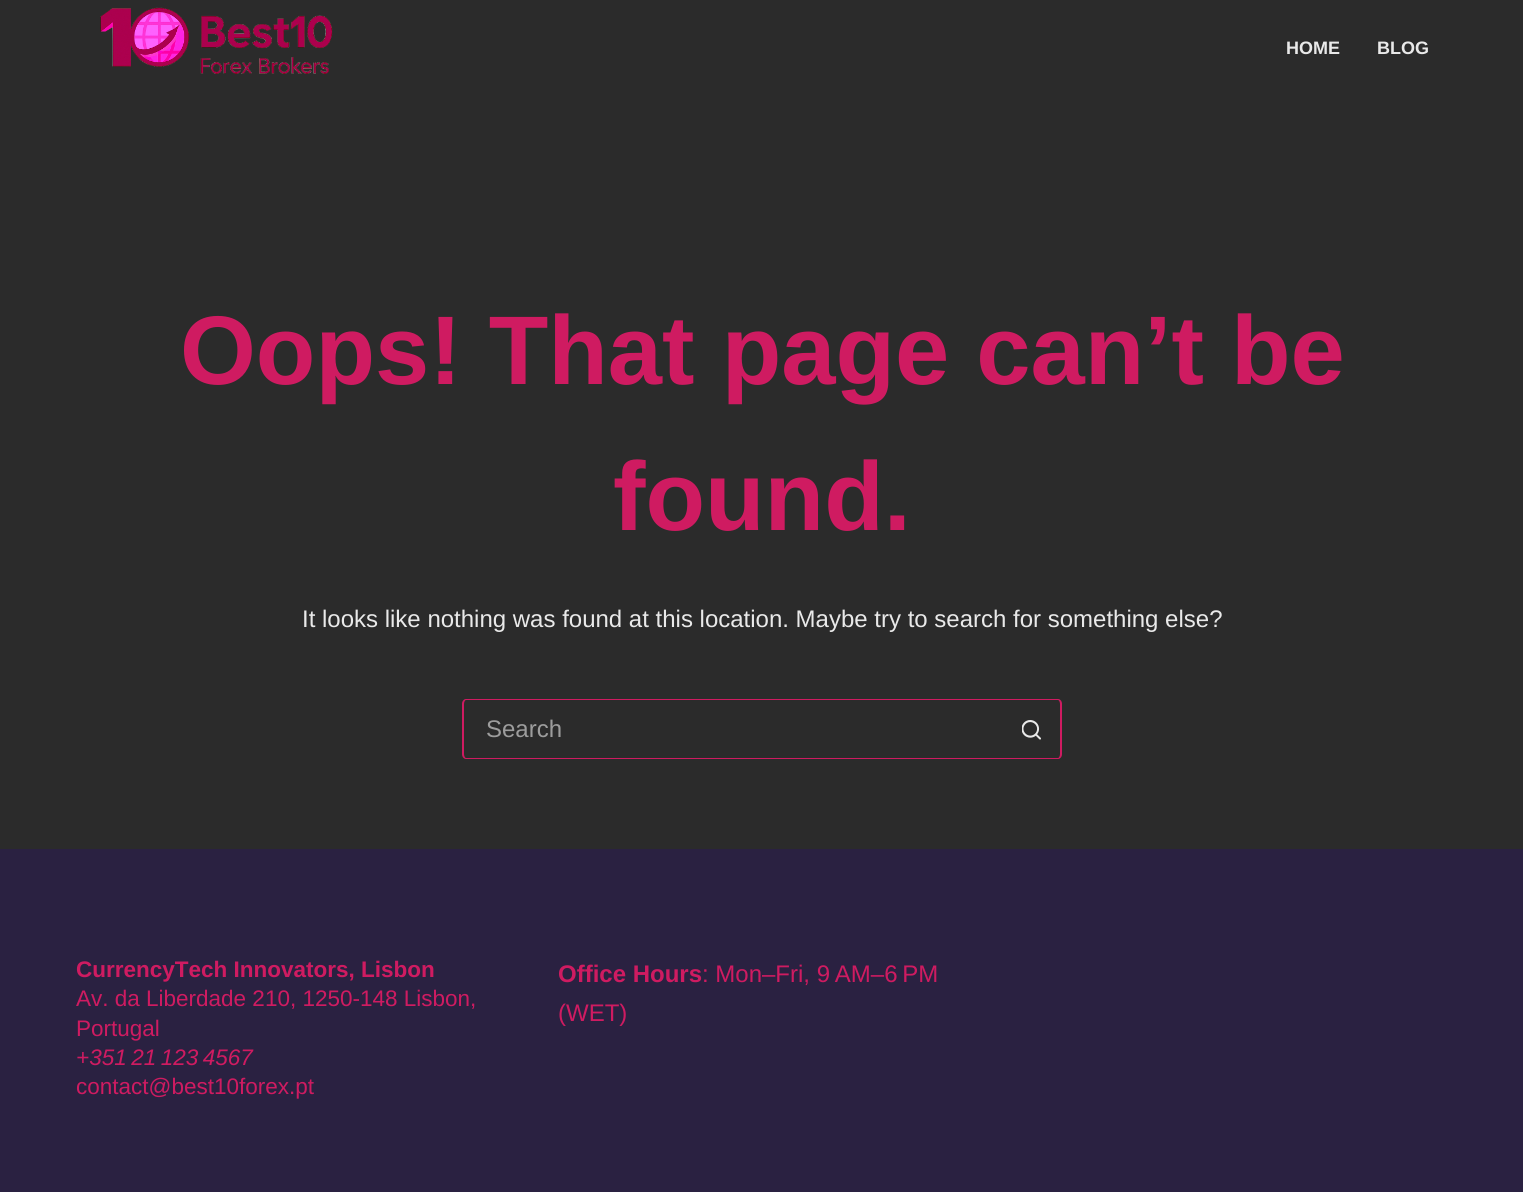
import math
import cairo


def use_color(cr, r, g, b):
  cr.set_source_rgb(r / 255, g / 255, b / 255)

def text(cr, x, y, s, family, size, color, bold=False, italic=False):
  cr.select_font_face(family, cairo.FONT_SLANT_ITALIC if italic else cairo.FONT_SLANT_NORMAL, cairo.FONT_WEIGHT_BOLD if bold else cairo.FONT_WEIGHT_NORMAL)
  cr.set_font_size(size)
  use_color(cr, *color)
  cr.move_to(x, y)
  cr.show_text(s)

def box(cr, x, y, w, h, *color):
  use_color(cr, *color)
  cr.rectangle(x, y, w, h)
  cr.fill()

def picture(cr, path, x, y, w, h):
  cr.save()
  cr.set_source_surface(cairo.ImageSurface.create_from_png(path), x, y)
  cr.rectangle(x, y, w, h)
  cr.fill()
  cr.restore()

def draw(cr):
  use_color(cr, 43, 43, 43)
  cr.paint()
  picture(cr, "img_01.png", 100, 7, 233, 67)
  use_color(cr, 207, 27, 97)
  cr.set_fill_rule(cairo.FILL_RULE_EVEN_ODD)
  cr.new_path()
  cr.move_to(466, 699)
  cr.line_to(1002, 699)
  cr.line_to(1002, 759)
  cr.line_to(466, 759)
  cr.curve_to(464, 759, 462, 757, 462, 754)
  cr.line_to(462, 704)
  cr.curve_to(462, 701, 464, 699, 466, 699)
  cr.close_path()
  cr.move_to(466, 700)
  cr.line_to(1002, 700)
  cr.line_to(1002, 758)
  cr.line_to(466, 758)
  cr.curve_to(465, 758, 464, 756, 464, 754)
  cr.line_to(464, 704)
  cr.curve_to(464, 702, 465, 700, 466, 700)
  cr.close_path()
  cr.fill()
  cr.new_path()
  cr.move_to(1002, 699)
  cr.line_to(1058, 699)
  cr.curve_to(1060, 699, 1062, 701, 1062, 704)
  cr.line_to(1062, 754)
  cr.curve_to(1062, 757, 1060, 759, 1058, 759)
  cr.line_to(1002, 759)
  cr.close_path()
  cr.move_to(1002, 700)
  cr.line_to(1058, 700)
  cr.curve_to(1059, 700, 1060, 702, 1060, 704)
  cr.line_to(1060, 754)
  cr.curve_to(1060, 756, 1059, 758, 1058, 758)
  cr.line_to(1002, 758)
  cr.close_path()
  cr.fill()
  picture(cr, "img_02.png", 1022, 720, 19, 20)
  box(cr, 0, 849, 1523, 343, 42, 33, 65)
  text(cr, 1286, 54, "HOME", "Liberation Sans", 18, (233, 233, 233), bold=True)
  text(cr, 1377, 54, "BLOG", "Liberation Sans", 18, (233, 233, 233), bold=True)
  text(cr, 180, 384, "Oops! That page can’t be", "Liberation Sans", 97.5, (207, 27, 97), bold=True)
  text(cr, 613, 530, "found.", "Liberation Sans", 97.5, (207, 27, 97), bold=True)
  text(cr, 302, 627, "It looks like nothing was found at this location. Maybe try to search for something else?", "Liberation Sans", 24, (233, 233, 233))
  text(cr, 486, 737, "Search", "Liberation Sans", 24, (157, 157, 157))
  text(cr, 76, 977, "CurrencyTech Innovators, Lisbon", "Liberation Sans", 22.5, (207, 27, 97), bold=True)
  text(cr, 76, 1006, "Av. da Liberdade 210, 1250-148 Lisbon,", "Liberation Sans", 22.5, (207, 27, 97))
  text(cr, 76, 1036, "Portugal", "Liberation Sans", 22.5, (207, 27, 97))
  text(cr, 76, 1065, "+351 21 123 4567", "Liberation Sans", 22.5, (207, 27, 97), italic=True)
  text(cr, 76, 1094, "contact@best10forex.pt", "Liberation Sans", 22.5, (207, 27, 97))
  text(cr, 558, 982, "Office Hours", "Liberation Sans", 24, (207, 27, 97), bold=True)
  text(cr, 702, 982, ": Mon–Fri, 9 AM–6 PM", "Liberation Sans", 24, (207, 27, 97))
  text(cr, 558, 1021, "(WET)", "Liberation Sans", 24, (207, 27, 97))


surface = cairo.ImageSurface(cairo.FORMAT_RGB24, 1523, 1192)
cr = cairo.Context(surface)
options = cairo.FontOptions()
options.set_hint_metrics(cairo.HINT_METRICS_OFF)
options.set_hint_style(cairo.HINT_STYLE_NONE)
cr.set_font_options(options)
cr.set_miter_limit(4)
draw(cr)
surface.write_to_png("out.png")
